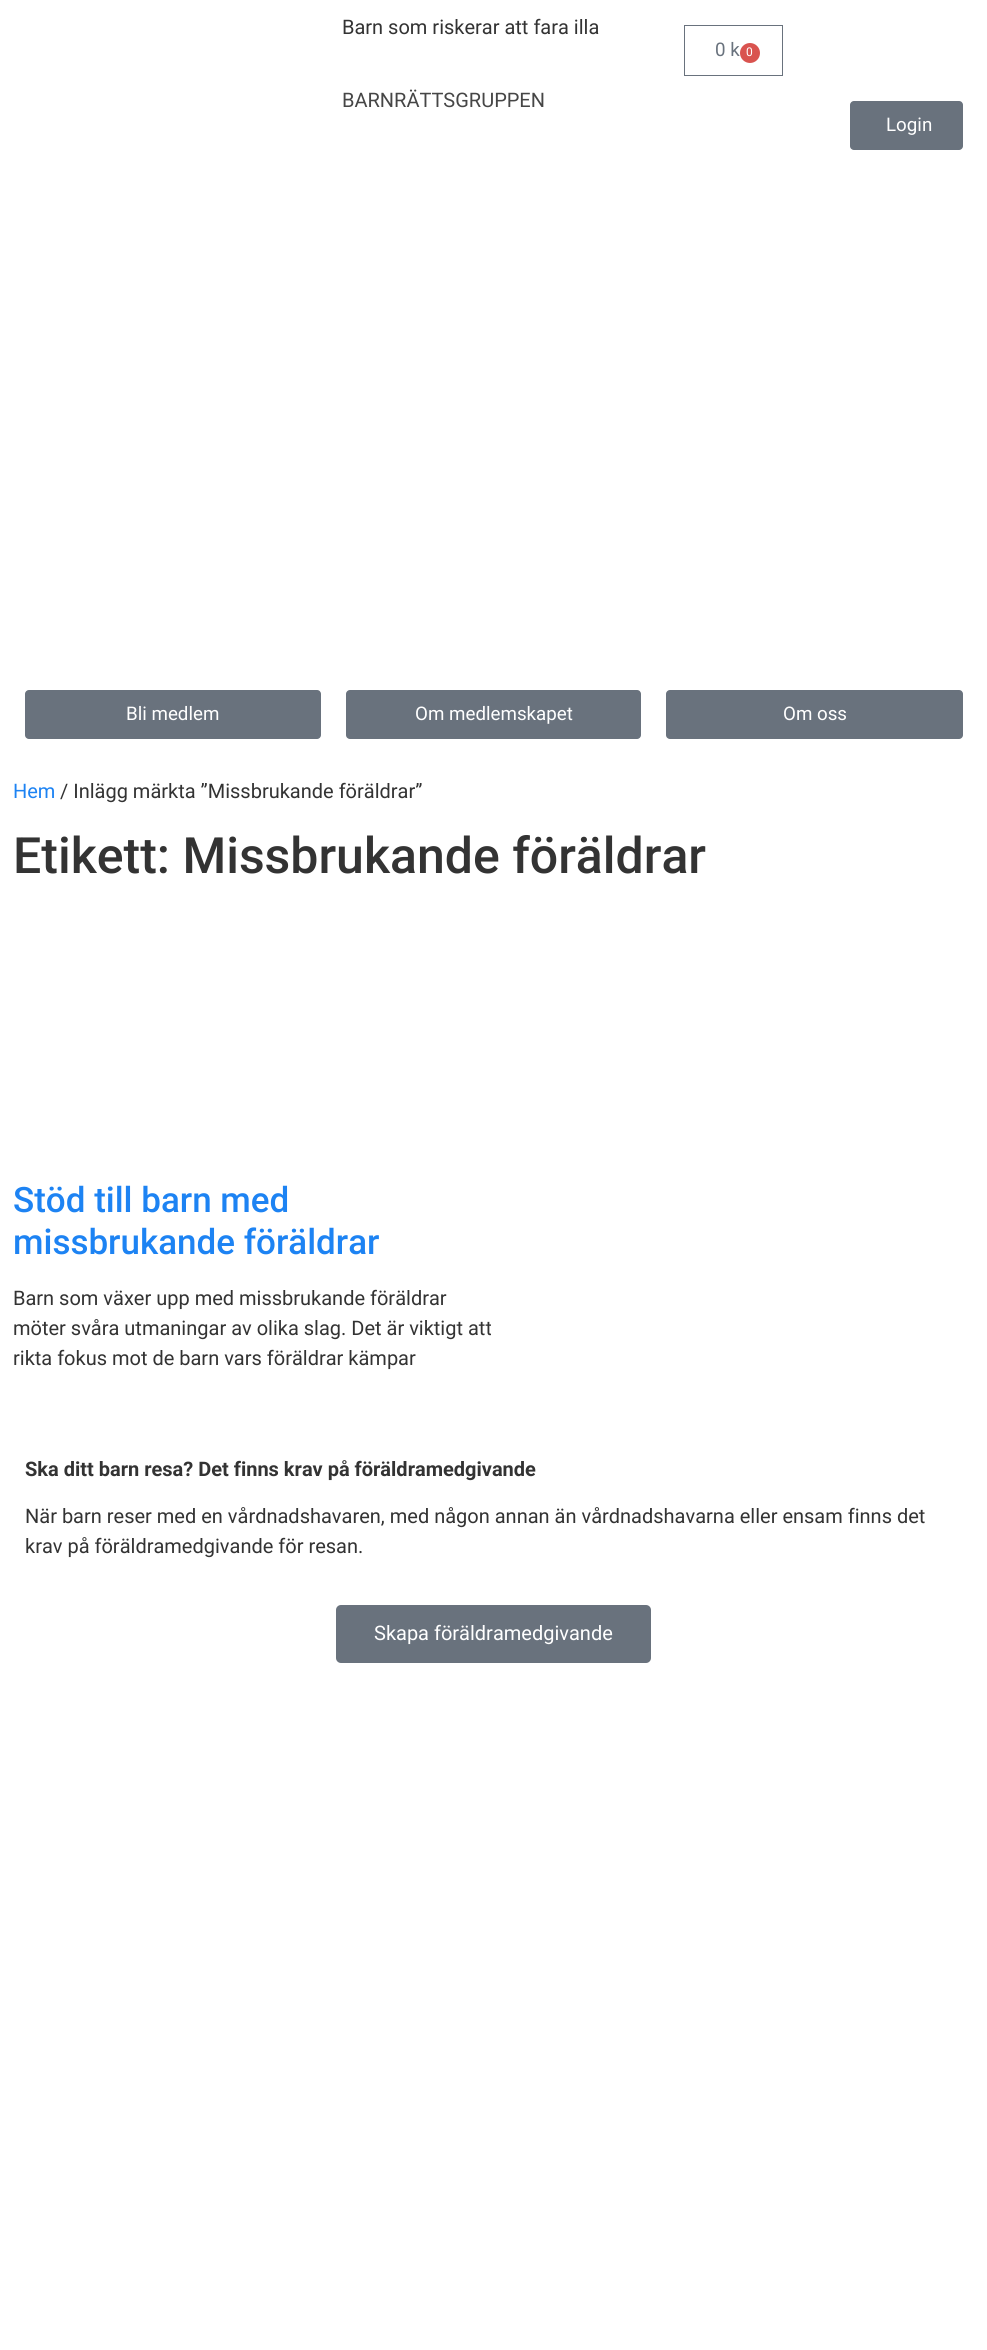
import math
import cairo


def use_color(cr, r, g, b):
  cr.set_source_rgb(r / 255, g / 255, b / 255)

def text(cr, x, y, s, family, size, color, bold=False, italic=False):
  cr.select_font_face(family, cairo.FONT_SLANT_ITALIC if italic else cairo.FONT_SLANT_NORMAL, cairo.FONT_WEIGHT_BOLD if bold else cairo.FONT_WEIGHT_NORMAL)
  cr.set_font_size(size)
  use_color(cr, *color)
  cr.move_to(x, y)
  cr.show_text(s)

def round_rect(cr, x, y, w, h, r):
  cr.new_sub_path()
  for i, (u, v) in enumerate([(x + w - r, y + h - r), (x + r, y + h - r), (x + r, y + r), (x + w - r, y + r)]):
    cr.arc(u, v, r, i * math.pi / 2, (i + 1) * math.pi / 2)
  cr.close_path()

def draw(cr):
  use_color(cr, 255, 255, 255)
  cr.paint()
  cr.rectangle(684.5, 25.5, 98, 50)
  use_color(cr, 105, 114, 125)
  cr.set_line_width(1)
  cr.stroke()
  use_color(cr, 217, 83, 79)
  cr.arc(750, 53, 10, 0, 2 * math.pi)
  cr.fill()
  use_color(cr, 105, 114, 125)
  round_rect(cr, 850, 101, 113, 49, 4)
  cr.fill()
  round_rect(cr, 25, 690, 296, 49, 4)
  cr.fill()
  round_rect(cr, 346, 690, 295, 49, 4)
  cr.fill()
  round_rect(cr, 666, 690, 297, 49, 4)
  cr.fill()
  round_rect(cr, 336, 1605, 315, 58, 5)
  cr.fill()
  text(cr, 342, 34, "Barn som riskerar att fara illa", "Roboto", 20, (51, 51, 51))
  text(cr, 342, 107, "BARNRÄTTSGRUPPEN", "Roboto", 20, (70, 70, 70))
  text(cr, 715, 56, "0 k", "Roboto", 18.75, (105, 114, 125))
  text(cr, 746, 56, "0", "Roboto", 12, (255, 255, 255))
  text(cr, 886, 131, "Login", "Roboto", 18.75, (255, 255, 255))
  text(cr, 126, 720, "Bli medlem", "Roboto", 18.75, (255, 255, 255))
  text(cr, 415, 720, "Om medlemskapet", "Roboto", 18.75, (255, 255, 255))
  text(cr, 783, 720, "Om oss", "Roboto", 18.75, (255, 255, 255))
  text(cr, 13, 798, "Hem", "Roboto", 20, (29, 131, 243))
  text(cr, 60, 798, "/ Inlägg märkta ”Missbrukande föräldrar”", "Roboto", 20, (51, 51, 51))
  text(cr, 13, 873, "Etikett: Missbrukande föräldrar", "Roboto Medium", 50, (51, 51, 51))
  text(cr, 13, 1212, "Stöd till barn med", "Roboto Medium", 35, (29, 131, 243))
  text(cr, 13, 1254, "missbrukande föräldrar", "Roboto Medium", 35, (29, 131, 243))
  text(cr, 13, 1305, "Barn som växer upp med missbrukande föräldrar", "Roboto", 20, (51, 51, 51))
  text(cr, 13, 1335, "möter svåra utmaningar av olika slag. Det är viktigt att", "Roboto", 20, (51, 51, 51))
  text(cr, 13, 1365, "rikta fokus mot de barn vars föräldrar kämpar", "Roboto", 20, (51, 51, 51))
  text(cr, 25, 1476, "Ska ditt barn resa? Det finns krav på föräldramedgivande", "Roboto", 20, (51, 51, 51), bold=True)
  text(cr, 25, 1523, "När barn reser med en vårdnadshavaren, med någon annan än vårdnadshavarna eller ensam finns det", "Roboto", 20, (51, 51, 51))
  text(cr, 25, 1553, "krav på föräldramedgivande för resan.", "Roboto", 20, (51, 51, 51))
  text(cr, 374, 1640, "Skapa föräldramedgivande", "Roboto", 20, (255, 255, 255))


surface = cairo.ImageSurface(cairo.FORMAT_RGB24, 987, 2350)
cr = cairo.Context(surface)
options = cairo.FontOptions()
options.set_hint_metrics(cairo.HINT_METRICS_OFF)
options.set_hint_style(cairo.HINT_STYLE_NONE)
cr.set_font_options(options)
cr.set_miter_limit(4)
draw(cr)
surface.write_to_png("out.png")
